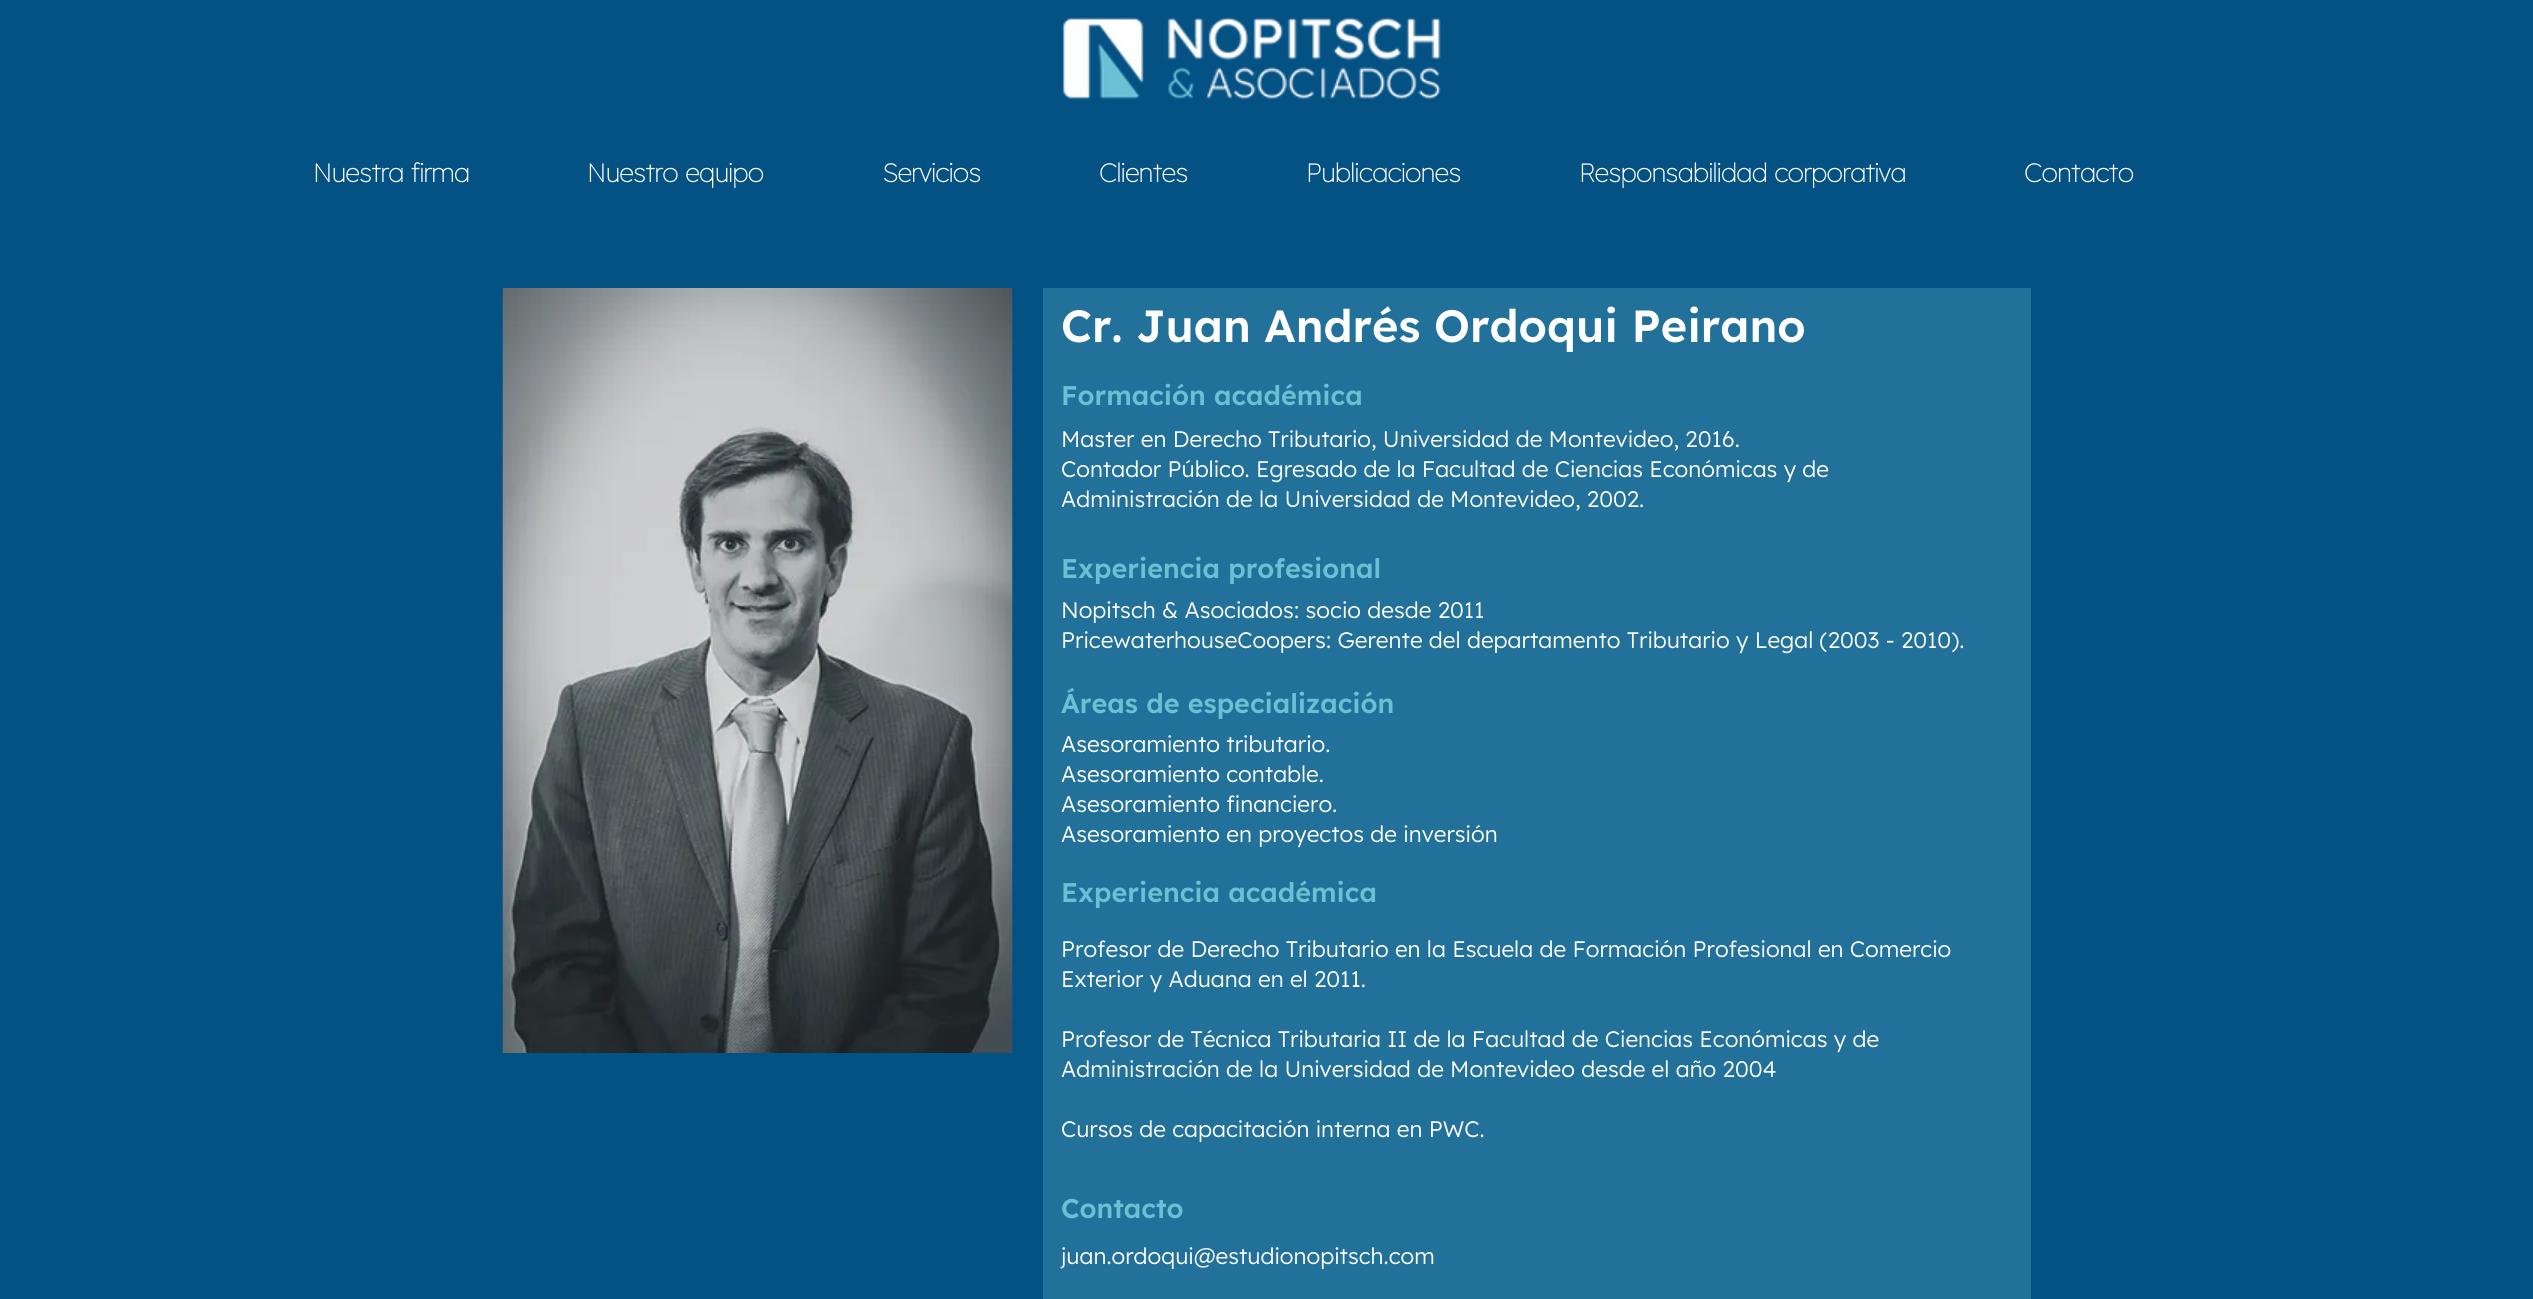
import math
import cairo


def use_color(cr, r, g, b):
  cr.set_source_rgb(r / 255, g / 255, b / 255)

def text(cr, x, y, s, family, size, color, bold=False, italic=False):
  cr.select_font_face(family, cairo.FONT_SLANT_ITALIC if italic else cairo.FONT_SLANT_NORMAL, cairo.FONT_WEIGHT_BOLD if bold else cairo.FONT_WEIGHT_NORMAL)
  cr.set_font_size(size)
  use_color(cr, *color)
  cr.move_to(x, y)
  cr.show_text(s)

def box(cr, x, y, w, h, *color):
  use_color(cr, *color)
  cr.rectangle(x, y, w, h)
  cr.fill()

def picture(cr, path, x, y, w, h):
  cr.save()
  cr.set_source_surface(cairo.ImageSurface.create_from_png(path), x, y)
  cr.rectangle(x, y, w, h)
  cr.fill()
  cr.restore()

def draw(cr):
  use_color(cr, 4, 81, 132)
  cr.paint()
  picture(cr, "img_01.png", 1062, 17, 379, 83)
  picture(cr, "img_02.png", 502, 288, 511, 765)
  box(cr, 1043, 288, 988, 1011, 34, 113, 154)
  text(cr, 313, 182, "Nuestra firma", "Lexend", 25.5, (255, 255, 255), bold=True)
  text(cr, 587, 182, "Nuestro equipo", "Lexend", 25.5, (255, 255, 255), bold=True)
  text(cr, 883, 182, "Servicios", "Lexend", 25.5, (255, 255, 255), bold=True)
  text(cr, 1099, 182, "Clientes", "Lexend", 25.5, (255, 255, 255), bold=True)
  text(cr, 1306, 182, "Publicaciones", "Lexend", 25.5, (255, 255, 255), bold=True)
  text(cr, 1579, 182, "Responsabilidad corporativa", "Lexend", 25.5, (255, 255, 255), bold=True)
  text(cr, 2024, 182, "Contacto", "Lexend", 25.5, (255, 255, 255), bold=True)
  text(cr, 1061, 342, "Cr. Juan Andrés Ordoqui Peirano", "Lexend SemiBold", 45, (255, 255, 255))
  text(cr, 1061, 405, "Formación académica", "Lexend SemiBold", 27, (106, 193, 211))
  text(cr, 1061, 447, "Master en Derecho Tributario, Universidad de Montevideo, 2016.", "Lexend", 22.5, (255, 255, 255))
  text(cr, 1061, 477, "Contador Público. Egresado de la Facultad de Ciencias Económicas y de", "Lexend", 22.5, (255, 255, 255))
  text(cr, 1061, 507, "Administración de la Universidad de Montevideo, 2002.", "Lexend", 22.5, (255, 255, 255))
  text(cr, 1061, 578, "Experiencia profesional", "Lexend SemiBold", 27, (106, 193, 211))
  text(cr, 1061, 618, "Nopitsch & Asociados: socio desde 2011", "Lexend", 22.5, (255, 255, 255))
  text(cr, 1061, 648, "PricewaterhouseCoopers: Gerente del departamento Tributario y Legal (2003 - 2010).", "Lexend", 22.5, (255, 255, 255))
  text(cr, 1061, 713, "Áreas de especialización", "Lexend SemiBold", 27, (106, 193, 211))
  text(cr, 1061, 752, "Asesoramiento tributario.", "Lexend", 22.5, (255, 255, 255))
  text(cr, 1061, 782, "Asesoramiento contable.", "Lexend", 22.5, (255, 255, 255))
  text(cr, 1061, 812, "Asesoramiento financiero.", "Lexend", 22.5, (255, 255, 255))
  text(cr, 1061, 842, "Asesoramiento en proyectos de inversión", "Lexend", 22.5, (255, 255, 255))
  text(cr, 1061, 902, "Experiencia académica", "Lexend SemiBold", 27, (106, 193, 211))
  text(cr, 1061, 957, "Profesor de Derecho Tributario en la Escuela de Formación Profesional en Comercio", "Lexend", 22.5, (255, 255, 255))
  text(cr, 1061, 987, "Exterior y Aduana en el 2011.", "Lexend", 22.5, (255, 255, 255))
  text(cr, 1061, 1047, "Profesor de Técnica Tributaria II de la Facultad de Ciencias Económicas y de", "Lexend", 22.5, (255, 255, 255))
  text(cr, 1061, 1077, "Administración de la Universidad de Montevideo desde el año 2004", "Lexend", 22.5, (255, 255, 255))
  text(cr, 1061, 1137, "Cursos de capacitación interna en PWC.", "Lexend", 22.5, (255, 255, 255))
  text(cr, 1061, 1218, "Contacto", "Lexend SemiBold", 27, (106, 193, 211))
  text(cr, 1061, 1264, "juan.ordoqui@estudionopitsch.com", "Lexend", 22.5, (255, 255, 255))


surface = cairo.ImageSurface(cairo.FORMAT_RGB24, 2533, 1299)
cr = cairo.Context(surface)
options = cairo.FontOptions()
options.set_hint_metrics(cairo.HINT_METRICS_OFF)
options.set_hint_style(cairo.HINT_STYLE_NONE)
cr.set_font_options(options)
cr.set_miter_limit(4)
draw(cr)
surface.write_to_png("out.png")
